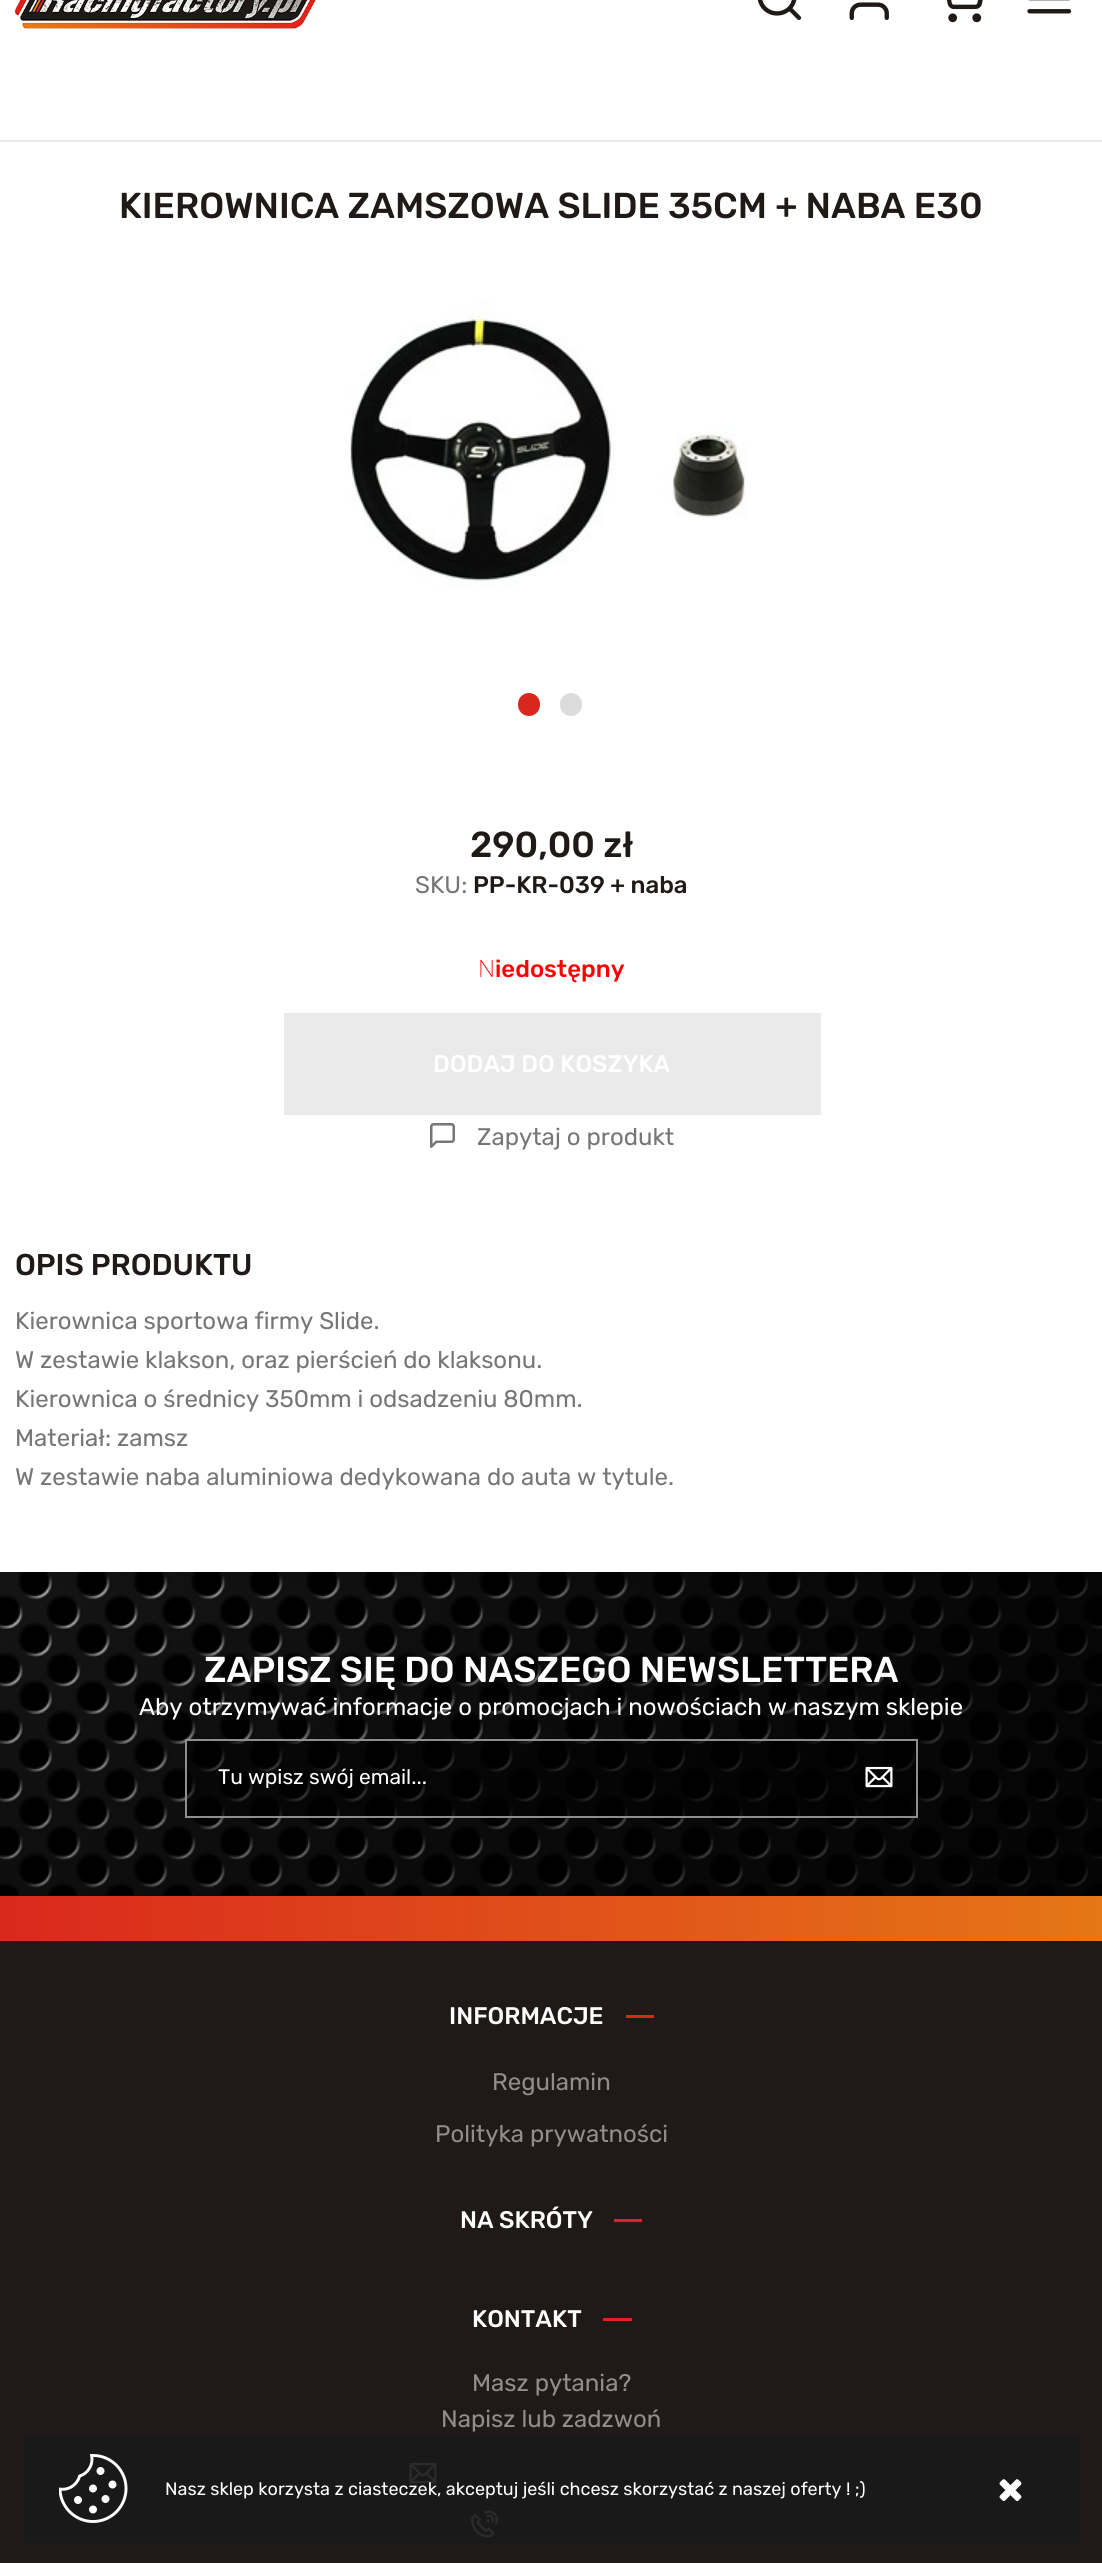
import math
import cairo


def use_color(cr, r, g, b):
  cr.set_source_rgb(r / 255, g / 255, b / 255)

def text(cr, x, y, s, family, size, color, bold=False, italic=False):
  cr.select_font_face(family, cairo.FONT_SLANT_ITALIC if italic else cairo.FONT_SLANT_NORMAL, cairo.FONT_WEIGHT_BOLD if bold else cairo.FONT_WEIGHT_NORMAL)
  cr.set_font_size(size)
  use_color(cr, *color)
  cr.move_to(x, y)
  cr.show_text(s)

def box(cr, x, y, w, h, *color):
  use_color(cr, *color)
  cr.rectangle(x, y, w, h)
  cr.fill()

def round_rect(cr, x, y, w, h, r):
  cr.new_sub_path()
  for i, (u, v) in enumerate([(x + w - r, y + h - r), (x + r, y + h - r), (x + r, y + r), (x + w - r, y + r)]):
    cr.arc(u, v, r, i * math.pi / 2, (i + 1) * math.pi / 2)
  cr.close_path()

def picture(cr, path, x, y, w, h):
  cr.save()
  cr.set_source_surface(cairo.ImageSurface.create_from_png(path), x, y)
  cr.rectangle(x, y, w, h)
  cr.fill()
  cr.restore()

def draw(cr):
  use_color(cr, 255, 255, 255)
  cr.paint()
  picture(cr, "img_01.png", 15, 0, 301, 29)
  picture(cr, "img_02.png", 757, 0, 45, 20)
  picture(cr, "img_03.png", 849, 2, 40, 18)
  picture(cr, "img_04.png", 946, 0, 37, 23)
  box(cr, 0, 140, 1102, 2, 234, 234, 234)
  picture(cr, "img_05.png", 1027, 0, 45, 14)
  picture(cr, "img_06.png", 350, 300, 397, 288)
  use_color(cr, 218, 39, 29)
  round_rect(cr, 518, 693, 22, 23, 11)
  cr.fill()
  use_color(cr, 220, 220, 220)
  round_rect(cr, 560, 693, 22, 23, 11)
  cr.fill()
  box(cr, 284, 1013, 537, 102, 234, 234, 234)
  picture(cr, "img_07.png", 430, 1123, 25, 25)
  picture(cr, "img_08.png", 0, 1572, 1102, 324)
  cr.set_source_rgba(0, 0, 0, 0.5)
  cr.rectangle(186, 1740, 731, 77)
  cr.fill_preserve()
  use_color(cr, 142, 142, 142)
  cr.stroke()
  picture(cr, "img_09.png", 865, 1766, 28, 22)
  gradient = cairo.LinearGradient(-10, 1919, 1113, 1919)
  gradient.add_color_stop_rgba(0, 0.855, 0.153, 0.114, 1)
  gradient.add_color_stop_rgba(1, 0.902, 0.467, 0.09, 1)
  cr.set_source(gradient)
  cr.rectangle(0, 1896, 1102, 45)
  cr.fill()
  box(cr, 0, 1941, 1102, 622, 31, 26, 23)
  box(cr, 23, 2435, 1057, 108, 25, 25, 25)
  box(cr, 626, 2015, 28, 3, 218, 39, 29)
  box(cr, 614, 2219, 28, 3, 218, 39, 29)
  box(cr, 603, 2318, 29, 3, 218, 39, 29)
  picture(cr, "img_10.png", 409, 2462, 28, 22)
  picture(cr, "img_11.png", 471, 2510, 27, 28)
  picture(cr, "img_12.png", 59, 2454, 69, 69)
  picture(cr, "img_13.png", 999, 2479, 23, 22)
  text(cr, 119, 218, "KIEROWNICA ZAMSZOWA SLIDE 35CM + NABA E30", "Rubik Medium", 36, (31, 26, 23))
  text(cr, 470, 857, "290,00 zł", "Rubik Medium", 36, (31, 26, 23))
  text(cr, 415, 893, "SKU:", "Rubik", 24, (118, 118, 118))
  text(cr, 473, 893, "PP-KR-039 + naba", "Rubik Medium", 24, (31, 26, 23))
  text(cr, 478, 977, "N", "Noto Sans ExtraLight", 24, (255, 0, 0))
  text(cr, 495, 977, "iedostępny", "Rubik Medium", 24, (255, 0, 0))
  text(cr, 433, 1072, "DODAJ DO KOSZYKA", "Rubik Medium", 24, (255, 255, 255))
  text(cr, 477, 1145, "Zapytaj o produkt", "Rubik", 24, (118, 118, 118))
  text(cr, 15, 1275, "OPIS PRODUKTU", "Rubik Medium", 30, (31, 26, 23))
  text(cr, 15, 1329, "Kierownica sportowa firmy Slide.", "Rubik", 24, (118, 118, 118))
  text(cr, 15, 1368, "W zestawie klakson, oraz pierścień do klaksonu.", "Rubik", 24, (118, 118, 118))
  text(cr, 15, 1407, "Kierownica o średnicy 350mm i odsadzeniu 80mm.", "Rubik", 24, (118, 118, 118))
  text(cr, 15, 1446, "Materiał: zamsz", "Rubik", 24, (118, 118, 118))
  text(cr, 15, 1485, "W zestawie naba aluminiowa dedykowana do auta w tytule.", "Rubik", 24, (118, 118, 118))
  text(cr, 204, 1682, "ZAPISZ SIĘ DO NASZEGO NEWSLETTERA", "Rubik Medium", 36, (255, 255, 255))
  text(cr, 139, 1715, "Aby otrzymywać informacje o promocjach i nowościach w naszym sklepie", "Rubik", 24, (255, 255, 255))
  text(cr, 218, 1784, "Tu wpisz swój email...", "Rubik", 21, (255, 255, 255))
  text(cr, 449, 2024, "INFORMACJE", "Rubik Medium", 24, (255, 255, 255))
  text(cr, 492, 2090, "Regulamin", "Rubik", 24, (146, 141, 141))
  text(cr, 435, 2142, "Polityka prywatności", "Rubik", 24, (146, 141, 141))
  text(cr, 460, 2228, "NA SKRÓTY", "Rubik Medium", 24, (255, 255, 255))
  text(cr, 472, 2327, "KONTAKT", "Rubik Medium", 24, (255, 255, 255))
  text(cr, 472, 2391, "Masz pytania?", "Rubik", 24, (146, 141, 141))
  text(cr, 441, 2427, "Napisz lub zadzwoń", "Rubik", 24, (146, 141, 141))
  text(cr, 165, 2495, "Nasz sklep korzysta z ciasteczek, akceptuj jeśli chcesz skorzystać z naszej oferty ! ;)", "Rubik", 18, (255, 255, 255))


surface = cairo.ImageSurface(cairo.FORMAT_RGB24, 1102, 2563)
cr = cairo.Context(surface)
options = cairo.FontOptions()
options.set_hint_metrics(cairo.HINT_METRICS_OFF)
options.set_hint_style(cairo.HINT_STYLE_NONE)
cr.set_font_options(options)
cr.set_miter_limit(4)
draw(cr)
surface.write_to_png("out.png")
